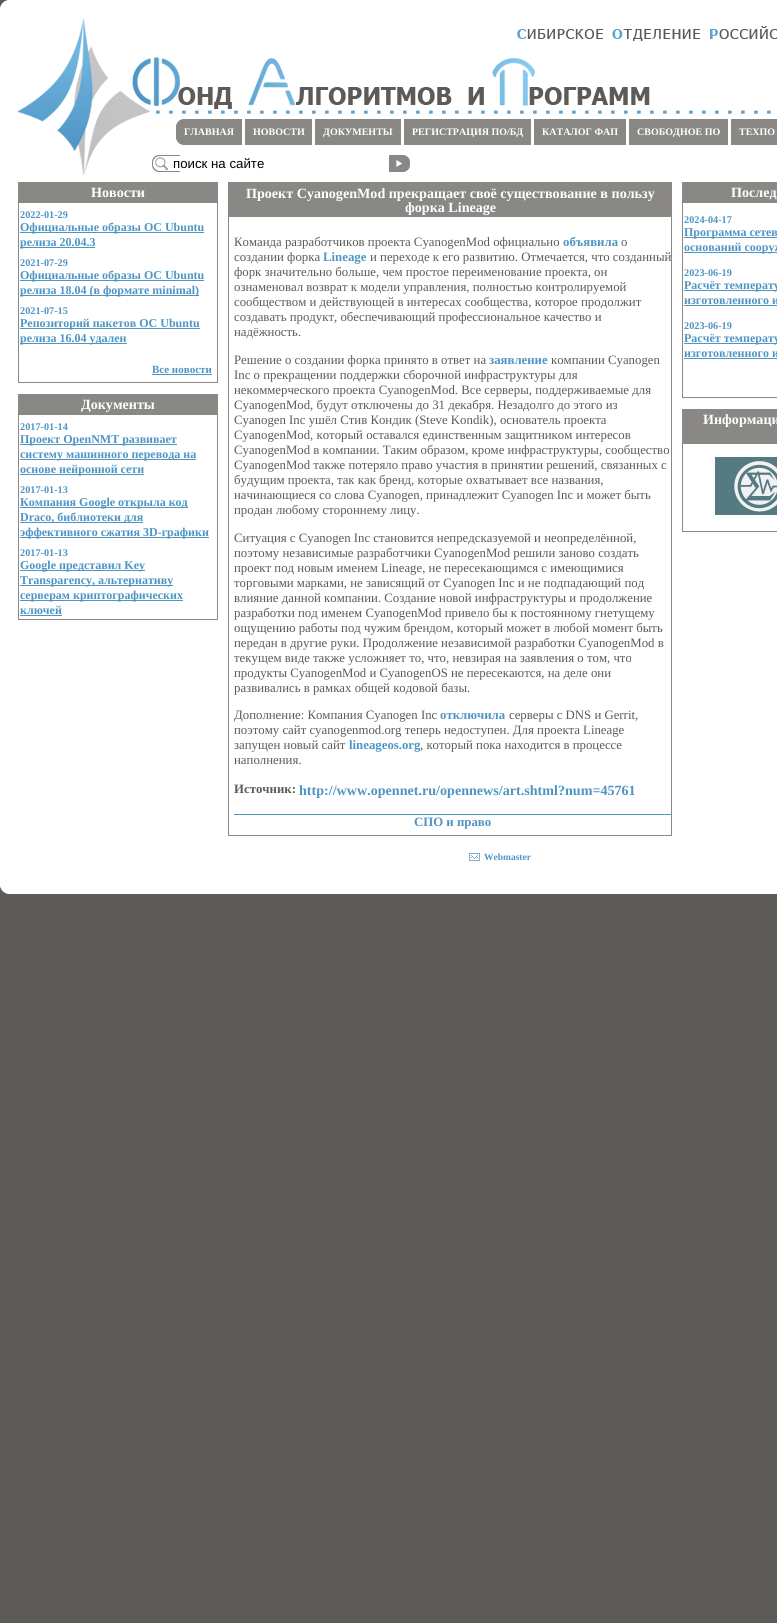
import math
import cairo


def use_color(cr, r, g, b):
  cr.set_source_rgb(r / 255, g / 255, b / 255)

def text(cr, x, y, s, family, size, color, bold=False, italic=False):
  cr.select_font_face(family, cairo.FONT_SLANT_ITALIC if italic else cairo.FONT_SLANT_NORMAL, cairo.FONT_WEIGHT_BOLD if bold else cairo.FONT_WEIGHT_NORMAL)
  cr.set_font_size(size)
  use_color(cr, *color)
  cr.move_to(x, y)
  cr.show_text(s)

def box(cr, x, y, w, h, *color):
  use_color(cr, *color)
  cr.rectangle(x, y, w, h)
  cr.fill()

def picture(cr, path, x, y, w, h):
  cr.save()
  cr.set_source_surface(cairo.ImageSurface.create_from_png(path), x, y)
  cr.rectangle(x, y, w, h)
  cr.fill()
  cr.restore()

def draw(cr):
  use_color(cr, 92, 91, 87)
  cr.paint()
  box(cr, 0, 0, 777, 894, 255, 255, 255)
  picture(cr, "img_01.png", 0, 0, 9, 8)
  picture(cr, "img_02.png", 18, 18, 632, 157)
  picture(cr, "img_03.png", 517, 26, 260, 15)
  picture(cr, "img_04.png", 156, 110, 615, 4)
  box(cr, 176, 119, 66, 26, 137, 136, 133)
  picture(cr, "img_05.png", 176, 119, 7, 7)
  picture(cr, "img_06.png", 176, 138, 7, 7)
  box(cr, 245, 119, 67, 26, 137, 136, 133)
  box(cr, 315, 119, 86, 26, 137, 136, 133)
  box(cr, 404, 119, 127, 26, 137, 136, 133)
  box(cr, 534, 119, 92, 26, 137, 136, 133)
  box(cr, 629, 119, 99, 26, 137, 136, 133)
  box(cr, 731, 119, 46, 26, 137, 136, 133)
  picture(cr, "img_07.png", 152, 155, 28, 17)
  picture(cr, "img_08.png", 389, 155, 21, 17)
  box(cr, 18, 182, 200, 20, 137, 136, 133)
  cr.rectangle(18.5, 202.5, 199, 180)
  cr.set_line_width(1)
  cr.stroke()
  box(cr, 20, 232, 184, 1, 78, 149, 196)
  box(cr, 20, 247, 75, 1, 78, 149, 196)
  box(cr, 20, 280, 184, 1, 78, 149, 196)
  box(cr, 20, 295, 179, 1, 78, 149, 196)
  box(cr, 20, 328, 180, 1, 78, 149, 196)
  box(cr, 20, 343, 107, 1, 78, 149, 196)
  box(cr, 152, 374, 60, 1, 78, 149, 196)
  box(cr, 18, 394, 200, 20, 137, 136, 133)
  cr.rectangle(18.5, 414.5, 199, 205)
  cr.stroke()
  box(cr, 20, 444, 157, 1, 78, 149, 196)
  box(cr, 20, 459, 176, 1, 78, 149, 196)
  box(cr, 20, 474, 124, 1, 78, 149, 196)
  box(cr, 20, 507, 168, 1, 78, 149, 196)
  box(cr, 20, 522, 123, 1, 78, 149, 196)
  box(cr, 20, 537, 189, 1, 78, 149, 196)
  box(cr, 20, 570, 125, 1, 78, 149, 196)
  box(cr, 20, 585, 153, 1, 78, 149, 196)
  box(cr, 20, 600, 163, 1, 78, 149, 196)
  box(cr, 20, 615, 42, 1, 78, 149, 196)
  cr.rectangle(228.5, 182.5, 443, 653)
  use_color(cr, 137, 136, 133)
  cr.stroke()
  box(cr, 229, 183, 442, 34, 137, 136, 133)
  box(cr, 234, 814, 438, 1, 78, 149, 196)
  box(cr, 682, 182, 95, 20, 137, 136, 133)
  cr.rectangle(682.5, 202.5, 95, 195)
  cr.stroke()
  box(cr, 684, 237, 93, 1, 78, 149, 196)
  box(cr, 684, 252, 93, 1, 78, 149, 196)
  box(cr, 684, 290, 93, 1, 78, 149, 196)
  box(cr, 684, 305, 93, 1, 78, 149, 196)
  box(cr, 684, 343, 93, 1, 78, 149, 196)
  box(cr, 684, 358, 93, 1, 78, 149, 196)
  box(cr, 682, 409, 95, 34, 137, 136, 133)
  cr.rectangle(682.5, 443.5, 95, 88)
  cr.stroke()
  picture(cr, "img_09.png", 715, 457, 62, 58)
  picture(cr, "img_10.png", 469, 853, 11, 8)
  picture(cr, "img_11.png", 0, 886, 9, 8)
  text(cr, 184, 135, "ГЛАВНАЯ", "Liberation Serif", 10, (255, 255, 255), bold=True)
  text(cr, 253, 135, "НОВОСТИ", "Liberation Serif", 10, (255, 255, 255), bold=True)
  text(cr, 323, 135, "ДОКУМЕНТЫ", "Liberation Serif", 10, (255, 255, 255), bold=True)
  text(cr, 412, 135, "РЕГИСТРАЦИЯ ПО/БД", "Liberation Serif", 10, (255, 255, 255), bold=True)
  text(cr, 542, 135, "КАТАЛОГ ФАП", "Liberation Serif", 10, (255, 255, 255), bold=True)
  text(cr, 637, 135, "СВОБОДНОЕ ПО", "Liberation Serif", 10, (255, 255, 255), bold=True)
  text(cr, 739, 135, "ТЕХПО", "Liberation Serif", 10, (255, 255, 255), bold=True)
  text(cr, 173, 168, "поиск на сайте", "Liberation Sans", 13.25, (0, 0, 0))
  text(cr, 91, 197, "Новости", "Liberation Serif", 14.1, (255, 255, 255), bold=True)
  text(cr, 20, 218, "2022-01-29", "Liberation Serif", 10.25, (78, 149, 196), bold=True)
  text(cr, 20, 231, "Официальные образы ОС Ubuntu", "Liberation Serif", 12, (78, 149, 196), bold=True)
  text(cr, 20, 246, "релиза 20.04.3", "Liberation Serif", 12, (78, 149, 196), bold=True)
  text(cr, 20, 266, "2021-07-29", "Liberation Serif", 10.25, (78, 149, 196), bold=True)
  text(cr, 20, 279, "Официальные образы ОС Ubuntu", "Liberation Serif", 12, (78, 149, 196), bold=True)
  text(cr, 20, 294, "релиза 18.04 (в формате minimal)", "Liberation Serif", 12, (78, 149, 196), bold=True)
  text(cr, 20, 314, "2021-07-15", "Liberation Serif", 10.25, (78, 149, 196), bold=True)
  text(cr, 20, 327, "Репозиторий пакетов ОС Ubuntu", "Liberation Serif", 12, (78, 149, 196), bold=True)
  text(cr, 20, 342, "релиза 16.04 удален", "Liberation Serif", 12, (78, 149, 196), bold=True)
  text(cr, 152, 373, "Все новости", "Liberation Serif", 11, (78, 149, 196), bold=True)
  text(cr, 81, 409, "Документы", "Liberation Serif", 14.1, (255, 255, 255), bold=True)
  text(cr, 20, 430, "2017-01-14", "Liberation Serif", 10.25, (78, 149, 196), bold=True)
  text(cr, 20, 443, "Проект OpenNMT развивает", "Liberation Serif", 12, (78, 149, 196), bold=True)
  text(cr, 20, 458, "систему машинного перевода на", "Liberation Serif", 12, (78, 149, 196), bold=True)
  text(cr, 20, 473, "основе нейронной сети", "Liberation Serif", 12, (78, 149, 196), bold=True)
  text(cr, 20, 493, "2017-01-13", "Liberation Serif", 10.25, (78, 149, 196), bold=True)
  text(cr, 20, 506, "Компания Google открыла код", "Liberation Serif", 12, (78, 149, 196), bold=True)
  text(cr, 20, 521, "Draco, библиотеки для", "Liberation Serif", 12, (78, 149, 196), bold=True)
  text(cr, 20, 536, "эффективного сжатия 3D-графики", "Liberation Serif", 12, (78, 149, 196), bold=True)
  text(cr, 20, 556, "2017-01-13", "Liberation Serif", 10.25, (78, 149, 196), bold=True)
  text(cr, 20, 569, "Google представил Key", "Liberation Serif", 12, (78, 149, 196), bold=True)
  text(cr, 20, 584, "Transparency, альтернативу", "Liberation Serif", 12, (78, 149, 196), bold=True)
  text(cr, 20, 599, "серверам криптографических", "Liberation Serif", 12, (78, 149, 196), bold=True)
  text(cr, 20, 614, "ключей", "Liberation Serif", 12, (78, 149, 196), bold=True)
  text(cr, 246, 198, "Проект CyanogenMod прекращает своё существование в пользу", "Liberation Serif", 14.1, (255, 255, 255), bold=True)
  text(cr, 405, 212, "форка Lineage", "Liberation Serif", 14.1, (255, 255, 255), bold=True)
  text(cr, 234, 246, "Команда разработчиков проекта CyanogenMod официально", "Liberation Serif", 12.8, (92, 91, 87))
  text(cr, 563, 246, "объявила", "Liberation Serif", 12.8, (78, 149, 196), bold=True)
  text(cr, 621, 246, "о", "Liberation Serif", 12.8, (92, 91, 87))
  text(cr, 234, 261, "создании форка", "Liberation Serif", 12.8, (92, 91, 87))
  text(cr, 323, 261, "Lineage", "Liberation Serif", 12.8, (78, 149, 196), bold=True)
  text(cr, 370, 261, "и переходе к его развитию. Отмечается, что созданный", "Liberation Serif", 12.8, (92, 91, 87))
  text(cr, 234, 276, "форк значительно больше, чем простое переименование проекта, он", "Liberation Serif", 12.8, (92, 91, 87))
  text(cr, 234, 291, "ознаменовал возврат к модели управления, полностью контролируемой", "Liberation Serif", 12.8, (92, 91, 87))
  text(cr, 234, 306, "сообществом и действующей в интересах сообщества, которое продолжит", "Liberation Serif", 12.8, (92, 91, 87))
  text(cr, 234, 321, "создавать продукт, обеспечивающий профессиональное качество и", "Liberation Serif", 12.8, (92, 91, 87))
  text(cr, 234, 336, "надёжность.", "Liberation Serif", 12.8, (92, 91, 87))
  text(cr, 234, 364, "Решение о создании форка принято в ответ на", "Liberation Serif", 12.8, (92, 91, 87))
  text(cr, 489, 364, "заявление", "Liberation Serif", 12.8, (78, 149, 196), bold=True)
  text(cr, 551, 364, "компании Cyanogen", "Liberation Serif", 12.8, (92, 91, 87))
  text(cr, 234, 379, "Inc о прекращении поддержки сборочной инфраструктуры для", "Liberation Serif", 12.8, (92, 91, 87))
  text(cr, 234, 394, "некоммерческого проекта CyanogenMod. Все серверы, поддерживаемые для", "Liberation Serif", 12.8, (92, 91, 87))
  text(cr, 234, 409, "CyanogenMod, будут отключены до 31 декабря. Незадолго до этого из", "Liberation Serif", 12.8, (92, 91, 87))
  text(cr, 234, 424, "Cyanogen Inc ушёл Стив Кондик (Steve Kondik), основатель проекта", "Liberation Serif", 12.8, (92, 91, 87))
  text(cr, 234, 439, "CyanogenMod, который оставался единственным защитником интересов", "Liberation Serif", 12.8, (92, 91, 87))
  text(cr, 234, 454, "CyanogenMod в компании. Таким образом, кроме инфраструктуры, сообщество", "Liberation Serif", 12.8, (92, 91, 87))
  text(cr, 234, 469, "CyanogenMod также потеряло право участия в принятии решений, связанных с", "Liberation Serif", 12.8, (92, 91, 87))
  text(cr, 234, 484, "будущим проекта, так как бренд, которые охватывает все названия,", "Liberation Serif", 12.8, (92, 91, 87))
  text(cr, 234, 499, "начинающиеся со слова Cyanogen, принадлежит Cyanogen Inc и может быть", "Liberation Serif", 12.8, (92, 91, 87))
  text(cr, 234, 514, "продан любому стороннему лицу.", "Liberation Serif", 12.8, (92, 91, 87))
  text(cr, 234, 542, "Ситуация с Cyanogen Inc становится непредсказуемой и неопределённой,", "Liberation Serif", 12.8, (92, 91, 87))
  text(cr, 234, 557, "поэтому независимые разработчики CyanogenMod решили заново создать", "Liberation Serif", 12.8, (92, 91, 87))
  text(cr, 234, 572, "проект под новым именем Lineage, не пересекающимся с имеющимися", "Liberation Serif", 12.8, (92, 91, 87))
  text(cr, 234, 587, "торговыми марками, не зависящий от Cyanogen Inc и не подпадающий под", "Liberation Serif", 12.8, (92, 91, 87))
  text(cr, 234, 602, "влияние данной компании. Создание новой инфраструктуры и продолжение", "Liberation Serif", 12.8, (92, 91, 87))
  text(cr, 234, 617, "разработки под именем CyanogenMod привело бы к постоянному гнетущему", "Liberation Serif", 12.8, (92, 91, 87))
  text(cr, 234, 632, "ощущению работы под чужим брендом, который может в любой момент быть", "Liberation Serif", 12.8, (92, 91, 87))
  text(cr, 234, 647, "передан в другие руки. Продолжение независимой разработки CyanogenMod в", "Liberation Serif", 12.8, (92, 91, 87))
  text(cr, 234, 662, "текущем виде также усложняет то, что, невзирая на заявления о том, что", "Liberation Serif", 12.8, (92, 91, 87))
  text(cr, 234, 677, "продукты CyanogenMod и CyanogenOS не пересекаются, на деле они", "Liberation Serif", 12.8, (92, 91, 87))
  text(cr, 234, 692, "развивались в рамках общей кодовой базы.", "Liberation Serif", 12.8, (92, 91, 87))
  text(cr, 234, 719, "Дополнение: Компания Cyanogen Inc", "Liberation Serif", 12.8, (92, 91, 87))
  text(cr, 440, 719, "отключила", "Liberation Serif", 12.8, (78, 149, 196), bold=True)
  text(cr, 509, 719, "серверы с DNS и Gerrit,", "Liberation Serif", 12.8, (92, 91, 87))
  text(cr, 234, 734, "поэтому сайт cyanogenmod.org теперь недоступен. Для проекта Lineage", "Liberation Serif", 12.8, (92, 91, 87))
  text(cr, 234, 749, "запущен новый сайт", "Liberation Serif", 12.8, (92, 91, 87))
  text(cr, 349, 749, "lineageos.org", "Liberation Serif", 12.8, (78, 149, 196), bold=True)
  text(cr, 420, 749, ", который пока находится в процессе", "Liberation Serif", 12.8, (92, 91, 87))
  text(cr, 234, 764, "наполнения.", "Liberation Serif", 12.8, (92, 91, 87))
  text(cr, 234, 793, "Источник:", "Liberation Serif", 12.8, (92, 91, 87), bold=True)
  text(cr, 299, 795, "http://www.opennet.ru/opennews/art.shtml?num=45761", "Liberation Serif", 14.1, (78, 149, 196), bold=True)
  text(cr, 414, 826, "СПО и право", "Liberation Serif", 12.8, (78, 149, 196), bold=True)
  text(cr, 731, 197, "Послед", "Liberation Serif", 14.1, (255, 255, 255), bold=True)
  text(cr, 684, 223, "2024-04-17", "Liberation Serif", 10.25, (78, 149, 196), bold=True)
  text(cr, 684, 236, "Программа сетев", "Liberation Serif", 12, (78, 149, 196), bold=True)
  text(cr, 684, 251, "оснований сооруж", "Liberation Serif", 12, (78, 149, 196), bold=True)
  text(cr, 684, 276, "2023-06-19", "Liberation Serif", 10.25, (78, 149, 196), bold=True)
  text(cr, 684, 289, "Расчёт температу", "Liberation Serif", 12, (78, 149, 196), bold=True)
  text(cr, 684, 304, "изготовленного и", "Liberation Serif", 12, (78, 149, 196), bold=True)
  text(cr, 684, 329, "2023-06-19", "Liberation Serif", 10.25, (78, 149, 196), bold=True)
  text(cr, 684, 342, "Расчёт температу", "Liberation Serif", 12, (78, 149, 196), bold=True)
  text(cr, 684, 357, "изготовленного и", "Liberation Serif", 12, (78, 149, 196), bold=True)
  text(cr, 703, 424, "Информаци", "Liberation Serif", 14.1, (255, 255, 255), bold=True)
  text(cr, 484, 860, "Webmaster", "Liberation Serif", 9.5, (78, 149, 196), bold=True)


surface = cairo.ImageSurface(cairo.FORMAT_RGB24, 777, 1623)
cr = cairo.Context(surface)
options = cairo.FontOptions()
options.set_hint_metrics(cairo.HINT_METRICS_OFF)
options.set_hint_style(cairo.HINT_STYLE_NONE)
cr.set_font_options(options)
cr.set_miter_limit(4)
draw(cr)
surface.write_to_png("out.png")
